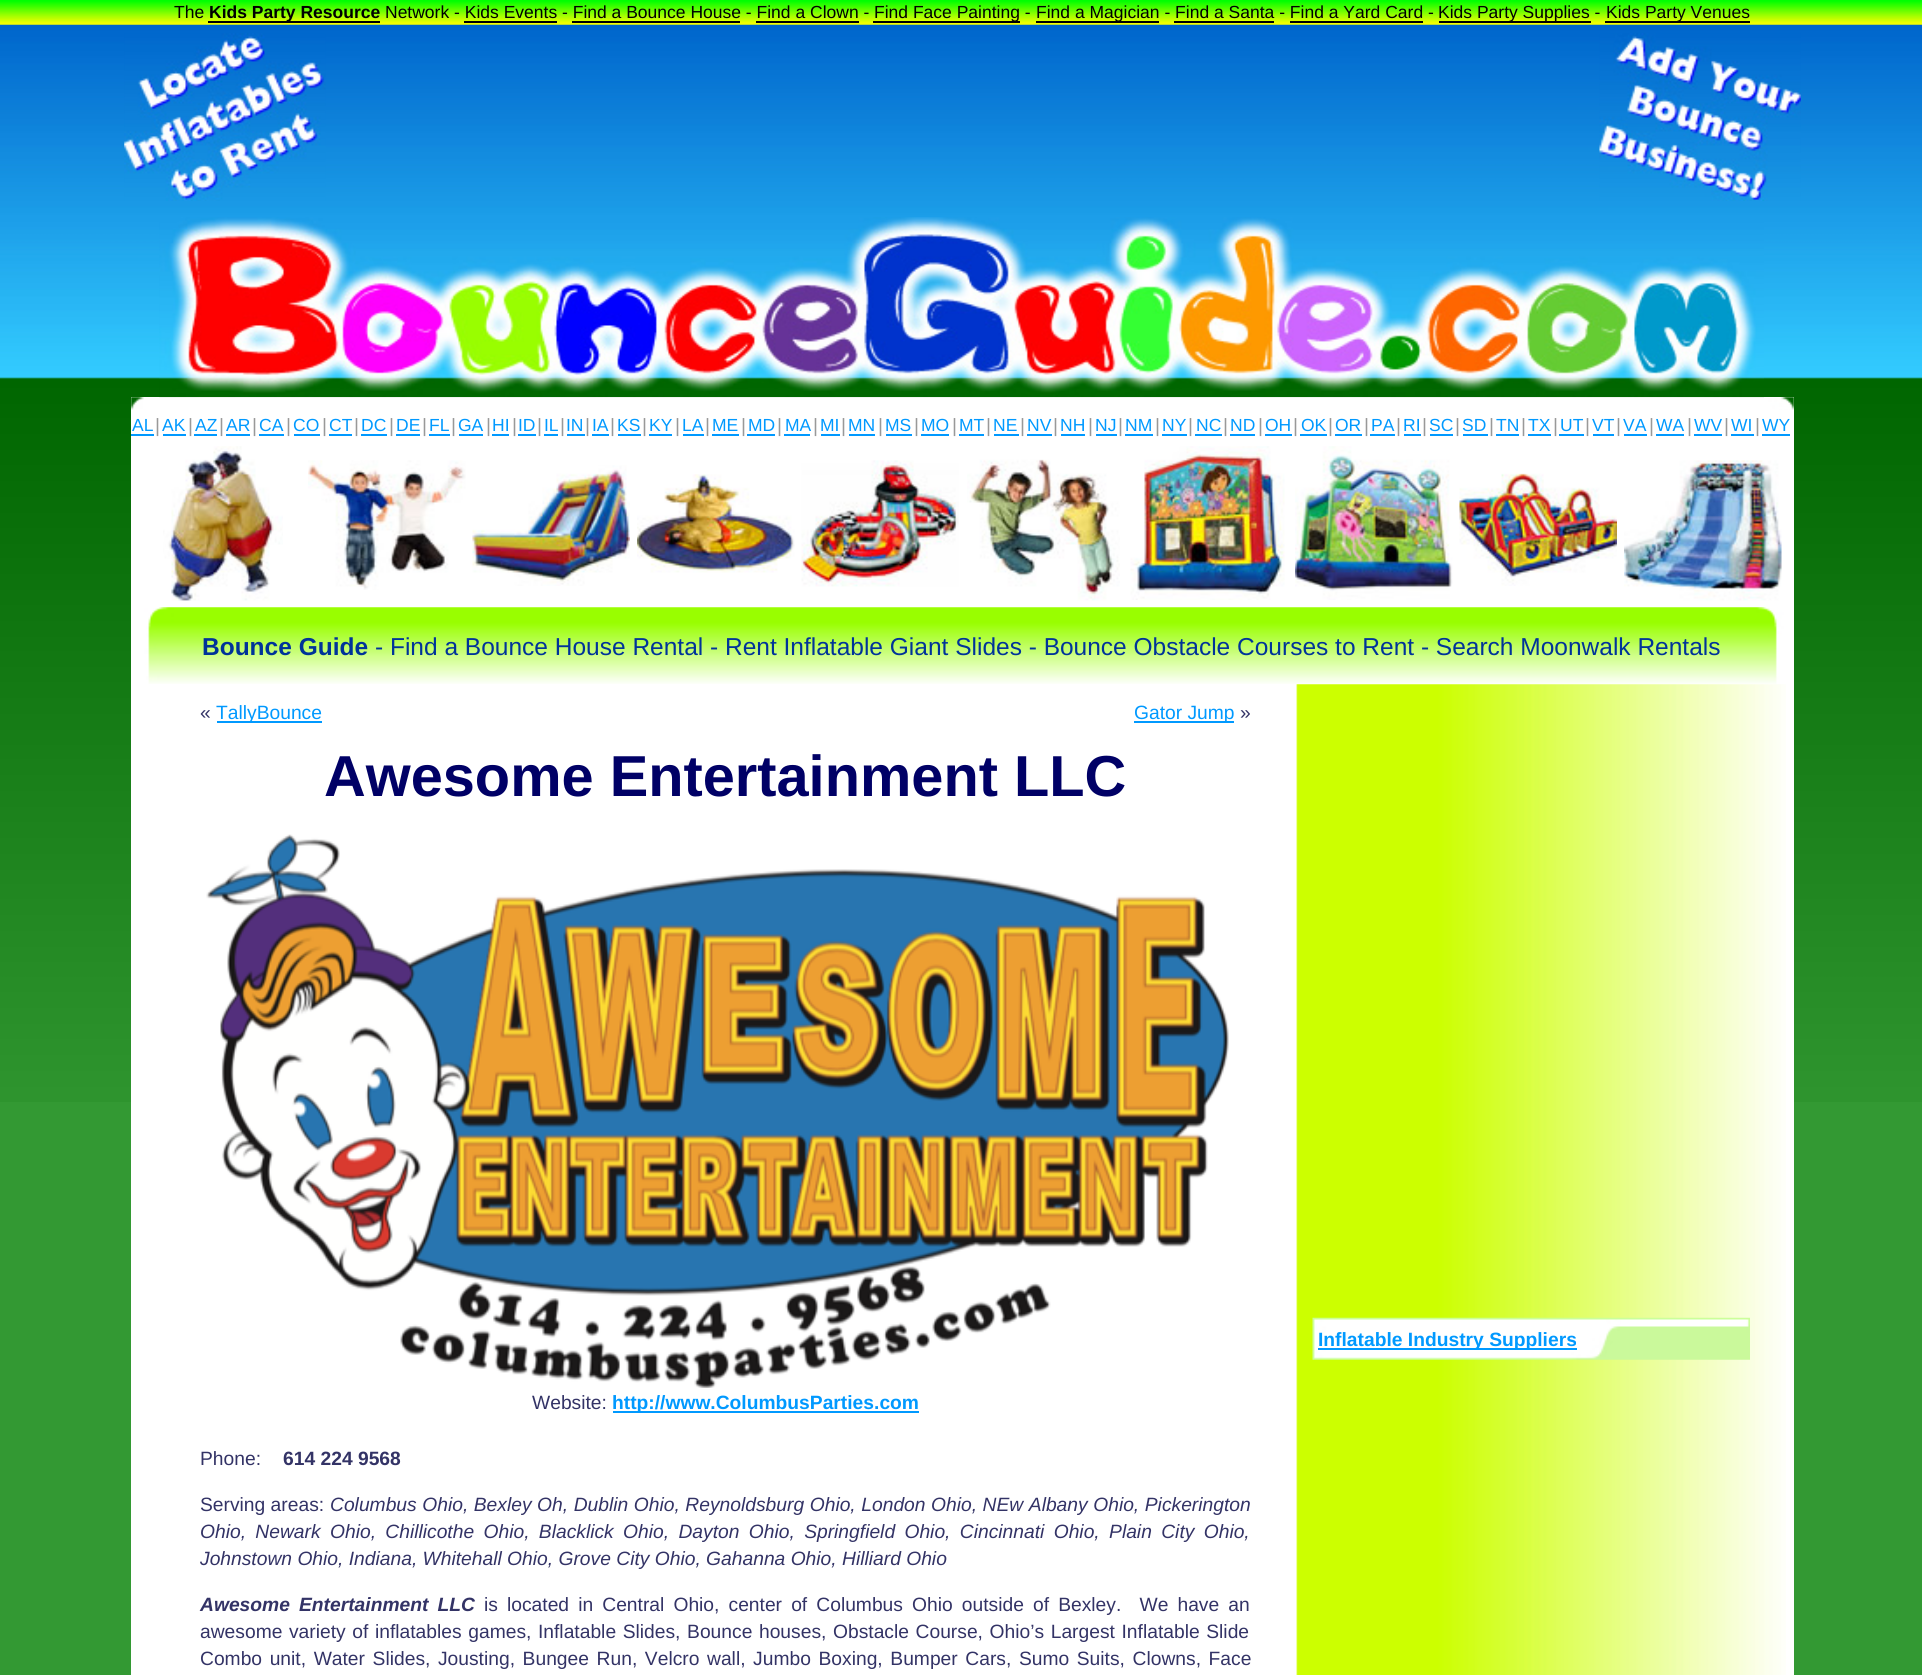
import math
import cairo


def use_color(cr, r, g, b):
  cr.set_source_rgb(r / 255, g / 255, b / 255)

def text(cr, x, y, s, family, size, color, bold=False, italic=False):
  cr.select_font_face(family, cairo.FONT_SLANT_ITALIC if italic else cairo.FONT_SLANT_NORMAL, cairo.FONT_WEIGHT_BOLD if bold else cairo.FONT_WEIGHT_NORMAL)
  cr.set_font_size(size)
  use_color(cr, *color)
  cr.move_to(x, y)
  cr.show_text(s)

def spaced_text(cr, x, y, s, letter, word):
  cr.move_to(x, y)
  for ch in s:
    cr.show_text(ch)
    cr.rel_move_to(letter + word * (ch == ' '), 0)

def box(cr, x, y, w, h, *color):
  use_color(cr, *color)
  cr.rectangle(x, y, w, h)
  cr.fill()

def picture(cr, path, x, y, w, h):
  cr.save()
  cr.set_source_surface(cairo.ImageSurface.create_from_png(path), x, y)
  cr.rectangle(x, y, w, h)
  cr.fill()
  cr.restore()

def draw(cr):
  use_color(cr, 51, 153, 51)
  cr.paint()
  picture(cr, "img_01.png", 0, 0, 1922, 1102)
  box(cr, 0, 24, 1922, 1, 184, 217, 51)
  box(cr, 208, 21, 172, 2, 0, 0, 0)
  box(cr, 873, 21, 147, 2, 0, 0, 0)
  box(cr, 1036, 21, 123, 2, 0, 0, 0)
  box(cr, 1439, 21, 152, 2, 0, 0, 0)
  box(cr, 1605, 21, 145, 2, 0, 0, 0)
  box(cr, 464, 21, 93, 2, 0, 0, 0)
  box(cr, 572, 21, 168, 2, 0, 0, 0)
  box(cr, 756, 21, 103, 2, 0, 0, 0)
  box(cr, 1174, 21, 100, 2, 0, 0, 0)
  box(cr, 1290, 21, 133, 2, 0, 0, 0)
  picture(cr, "img_02.png", 124, 33, 202, 168)
  picture(cr, "img_03.png", 1599, 33, 202, 168)
  box(cr, 131, 397, 1663, 1278, 255, 255, 255)
  picture(cr, "img_04.png", 159, 217, 1605, 181)
  picture(cr, "img_05.png", 131, 397, 1663, 13)
  box(cr, 131, 434, 23, 2, 0, 153, 255)
  box(cr, 163, 434, 23, 2, 0, 153, 255)
  box(cr, 194, 434, 23, 2, 0, 153, 255)
  box(cr, 226, 434, 24, 2, 0, 153, 255)
  box(cr, 259, 434, 25, 2, 0, 153, 255)
  box(cr, 294, 434, 26, 2, 0, 153, 255)
  box(cr, 329, 434, 23, 2, 0, 153, 255)
  box(cr, 361, 434, 26, 2, 0, 153, 255)
  box(cr, 396, 434, 24, 2, 0, 153, 255)
  box(cr, 429, 434, 21, 2, 0, 153, 255)
  box(cr, 459, 434, 24, 2, 0, 153, 255)
  box(cr, 492, 434, 17, 2, 0, 153, 255)
  box(cr, 518, 434, 18, 2, 0, 153, 255)
  box(cr, 544, 434, 14, 2, 0, 153, 255)
  box(cr, 567, 434, 18, 2, 0, 153, 255)
  box(cr, 592, 434, 17, 2, 0, 153, 255)
  box(cr, 618, 434, 23, 2, 0, 153, 255)
  box(cr, 649, 434, 23, 2, 0, 153, 255)
  box(cr, 683, 434, 21, 2, 0, 153, 255)
  box(cr, 712, 434, 27, 2, 0, 153, 255)
  box(cr, 747, 434, 28, 2, 0, 153, 255)
  box(cr, 784, 434, 26, 2, 0, 153, 255)
  box(cr, 821, 434, 19, 2, 0, 153, 255)
  box(cr, 849, 434, 26, 2, 0, 153, 255)
  box(cr, 886, 434, 26, 2, 0, 153, 255)
  box(cr, 921, 434, 28, 2, 0, 153, 255)
  box(cr, 959, 434, 25, 2, 0, 153, 255)
  box(cr, 994, 434, 25, 2, 0, 153, 255)
  box(cr, 1027, 434, 25, 2, 0, 153, 255)
  box(cr, 1061, 434, 24, 2, 0, 153, 255)
  box(cr, 1096, 434, 21, 2, 0, 153, 255)
  box(cr, 1125, 434, 28, 2, 0, 153, 255)
  box(cr, 1162, 434, 25, 2, 0, 153, 255)
  box(cr, 1195, 434, 27, 2, 0, 153, 255)
  box(cr, 1230, 434, 25, 2, 0, 153, 255)
  box(cr, 1265, 434, 27, 2, 0, 153, 255)
  box(cr, 1300, 434, 27, 2, 0, 153, 255)
  box(cr, 1335, 434, 27, 2, 0, 153, 255)
  box(cr, 1370, 434, 25, 2, 0, 153, 255)
  box(cr, 1404, 434, 17, 2, 0, 153, 255)
  box(cr, 1430, 434, 23, 2, 0, 153, 255)
  box(cr, 1463, 434, 25, 2, 0, 153, 255)
  box(cr, 1496, 434, 23, 2, 0, 153, 255)
  box(cr, 1528, 434, 23, 2, 0, 153, 255)
  box(cr, 1559, 434, 25, 2, 0, 153, 255)
  box(cr, 1593, 434, 21, 2, 0, 153, 255)
  box(cr, 1624, 434, 23, 2, 0, 153, 255)
  box(cr, 1656, 434, 28, 2, 0, 153, 255)
  box(cr, 1694, 434, 28, 2, 0, 153, 255)
  box(cr, 1731, 434, 23, 2, 0, 153, 255)
  box(cr, 1762, 434, 28, 2, 0, 153, 255)
  picture(cr, "img_06.png", 163, 446, 120, 155)
  picture(cr, "img_07.png", 308, 460, 158, 130)
  picture(cr, "img_08.png", 472, 465, 158, 121)
  picture(cr, "img_09.png", 637, 474, 158, 99)
  picture(cr, "img_10.png", 801, 460, 158, 127)
  picture(cr, "img_11.png", 967, 459, 153, 142)
  picture(cr, "img_12.png", 1130, 446, 155, 154)
  picture(cr, "img_13.png", 1295, 446, 158, 154)
  picture(cr, "img_14.png", 1459, 473, 158, 113)
  picture(cr, "img_15.png", 1624, 460, 158, 141)
  picture(cr, "img_16.png", 131, 607, 1663, 77)
  picture(cr, "img_17.png", 1296, 684, 490, 991)
  box(cr, 217, 721, 105, 2, 0, 153, 255)
  box(cr, 1134, 721, 100, 2, 0, 153, 255)
  picture(cr, "img_18.png", 206, 834, 1023, 554)
  box(cr, 613, 1411, 306, 2, 0, 153, 255)
  picture(cr, "img_19.png", 1312, 1317, 438, 43)
  box(cr, 1318, 1348, 259, 2, 0, 153, 255)
  text(cr, 174, 18, "The", "Liberation Sans", 17.5, (0, 0, 0))
  text(cr, 209, 18, "Kids Party Resource", "Liberation Sans", 17.5, (0, 0, 0), bold=True)
  text(cr, 385, 18, "Network - Kids Events - Find a Bounce House - Find a Clown -", "Liberation Sans", 17.5, (0, 0, 0))
  text(cr, 874, 18, "Find Face Painting -", "Liberation Sans", 17.5, (0, 0, 0))
  text(cr, 1036, 18, "Find a Magician - Find a Santa - Find a Yard Card -", "Liberation Sans", 17.5, (0, 0, 0))
  text(cr, 1438, 18, "Kids Party Supplies -", "Liberation Sans", 17.5, (0, 0, 0))
  text(cr, 1606, 18, "Kids Party Venues", "Liberation Sans", 17.5, (0, 0, 0))
  text(cr, 132, 431, "AL", "Liberation Sans", 17.5, (0, 153, 255))
  text(cr, 155, 432, "|", "Liberation Sans", 19.25, (153, 153, 153))
  text(cr, 162, 431, "AK", "Liberation Sans", 17.5, (0, 153, 255))
  text(cr, 188, 432, "|", "Liberation Sans", 19.25, (153, 153, 153))
  text(cr, 195, 431, "AZ", "Liberation Sans", 17.5, (0, 153, 255))
  text(cr, 219, 432, "|", "Liberation Sans", 19.25, (153, 153, 153))
  text(cr, 226, 431, "AR", "Liberation Sans", 17.5, (0, 153, 255))
  text(cr, 252, 432, "|", "Liberation Sans", 19.25, (153, 153, 153))
  text(cr, 259, 431, "CA", "Liberation Sans", 17.5, (0, 153, 255))
  text(cr, 286, 432, "|", "Liberation Sans", 19.25, (153, 153, 153))
  text(cr, 293, 431, "CO", "Liberation Sans", 17.5, (0, 153, 255))
  text(cr, 322, 432, "|", "Liberation Sans", 19.25, (153, 153, 153))
  text(cr, 329, 431, "CT", "Liberation Sans", 17.5, (0, 153, 255))
  text(cr, 354, 432, "|", "Liberation Sans", 19.25, (153, 153, 153))
  text(cr, 361, 431, "DC", "Liberation Sans", 17.5, (0, 153, 255))
  text(cr, 389, 432, "|", "Liberation Sans", 19.25, (153, 153, 153))
  text(cr, 396, 431, "DE", "Liberation Sans", 17.5, (0, 153, 255))
  text(cr, 422, 432, "|", "Liberation Sans", 19.25, (153, 153, 153))
  text(cr, 429, 431, "FL", "Liberation Sans", 17.5, (0, 153, 255))
  text(cr, 451, 432, "|", "Liberation Sans", 19.25, (153, 153, 153))
  text(cr, 458, 431, "GA", "Liberation Sans", 17.5, (0, 153, 255))
  text(cr, 486, 432, "|", "Liberation Sans", 19.25, (153, 153, 153))
  text(cr, 492, 431, "HI", "Liberation Sans", 17.5, (0, 153, 255))
  text(cr, 512, 432, "|", "Liberation Sans", 19.25, (153, 153, 153))
  text(cr, 518, 431, "ID", "Liberation Sans", 17.5, (0, 153, 255))
  text(cr, 537, 432, "|", "Liberation Sans", 19.25, (153, 153, 153))
  text(cr, 544, 431, "IL", "Liberation Sans", 17.5, (0, 153, 255))
  text(cr, 560, 432, "|", "Liberation Sans", 19.25, (153, 153, 153))
  text(cr, 566, 431, "IN", "Liberation Sans", 17.5, (0, 153, 255))
  text(cr, 585, 432, "|", "Liberation Sans", 19.25, (153, 153, 153))
  text(cr, 592, 431, "IA", "Liberation Sans", 17.5, (0, 153, 255))
  text(cr, 610, 432, "|", "Liberation Sans", 19.25, (153, 153, 153))
  text(cr, 617, 431, "KS", "Liberation Sans", 17.5, (0, 153, 255))
  text(cr, 642, 432, "|", "Liberation Sans", 19.25, (153, 153, 153))
  text(cr, 649, 431, "KY", "Liberation Sans", 17.5, (0, 153, 255))
  text(cr, 675, 432, "|", "Liberation Sans", 19.25, (153, 153, 153))
  text(cr, 682, 431, "LA", "Liberation Sans", 17.5, (0, 153, 255))
  text(cr, 705, 432, "|", "Liberation Sans", 19.25, (153, 153, 153))
  text(cr, 712, 431, "ME", "Liberation Sans", 17.5, (0, 153, 255))
  text(cr, 741, 432, "|", "Liberation Sans", 19.25, (153, 153, 153))
  text(cr, 748, 431, "MD", "Liberation Sans", 17.5, (0, 153, 255))
  text(cr, 777, 432, "|", "Liberation Sans", 19.25, (153, 153, 153))
  text(cr, 785, 431, "MA", "Liberation Sans", 17.5, (0, 153, 255))
  text(cr, 813, 432, "|", "Liberation Sans", 19.25, (153, 153, 153))
  text(cr, 820, 431, "MI", "Liberation Sans", 17.5, (0, 153, 255))
  text(cr, 841, 432, "|", "Liberation Sans", 19.25, (153, 153, 153))
  text(cr, 848, 431, "MN", "Liberation Sans", 17.5, (0, 153, 255))
  text(cr, 878, 432, "|", "Liberation Sans", 19.25, (153, 153, 153))
  text(cr, 885, 431, "MS", "Liberation Sans", 17.5, (0, 153, 255))
  text(cr, 914, 432, "|", "Liberation Sans", 19.25, (153, 153, 153))
  text(cr, 921, 431, "MO", "Liberation Sans", 17.5, (0, 153, 255))
  text(cr, 952, 432, "|", "Liberation Sans", 19.25, (153, 153, 153))
  text(cr, 959, 431, "MT", "Liberation Sans", 17.5, (0, 153, 255))
  text(cr, 986, 432, "|", "Liberation Sans", 19.25, (153, 153, 153))
  text(cr, 993, 431, "NE", "Liberation Sans", 17.5, (0, 153, 255))
  text(cr, 1020, 432, "|", "Liberation Sans", 19.25, (153, 153, 153))
  text(cr, 1027, 431, "NV", "Liberation Sans", 17.5, (0, 153, 255))
  text(cr, 1053, 432, "|", "Liberation Sans", 19.25, (153, 153, 153))
  text(cr, 1060, 431, "NH", "Liberation Sans", 17.5, (0, 153, 255))
  text(cr, 1088, 432, "|", "Liberation Sans", 19.25, (153, 153, 153))
  text(cr, 1095, 431, "NJ", "Liberation Sans", 17.5, (0, 153, 255))
  text(cr, 1118, 432, "|", "Liberation Sans", 19.25, (153, 153, 153))
  text(cr, 1125, 431, "NM", "Liberation Sans", 17.5, (0, 153, 255))
  text(cr, 1155, 432, "|", "Liberation Sans", 19.25, (153, 153, 153))
  text(cr, 1162, 431, "NY", "Liberation Sans", 17.5, (0, 153, 255))
  text(cr, 1188, 432, "|", "Liberation Sans", 19.25, (153, 153, 153))
  text(cr, 1196, 431, "NC", "Liberation Sans", 17.5, (0, 153, 255))
  text(cr, 1223, 432, "|", "Liberation Sans", 19.25, (153, 153, 153))
  text(cr, 1230, 431, "ND", "Liberation Sans", 17.5, (0, 153, 255))
  text(cr, 1258, 432, "|", "Liberation Sans", 19.25, (153, 153, 153))
  text(cr, 1265, 431, "OH", "Liberation Sans", 17.5, (0, 153, 255))
  text(cr, 1293, 432, "|", "Liberation Sans", 19.25, (153, 153, 153))
  text(cr, 1301, 431, "OK", "Liberation Sans", 17.5, (0, 153, 255))
  text(cr, 1328, 432, "|", "Liberation Sans", 19.25, (153, 153, 153))
  text(cr, 1335, 431, "OR", "Liberation Sans", 17.5, (0, 153, 255))
  text(cr, 1364, 432, "|", "Liberation Sans", 19.25, (153, 153, 153))
  text(cr, 1371, 431, "PA", "Liberation Sans", 17.5, (0, 153, 255))
  text(cr, 1396, 432, "|", "Liberation Sans", 19.25, (153, 153, 153))
  text(cr, 1403, 431, "RI", "Liberation Sans", 17.5, (0, 153, 255))
  text(cr, 1422, 432, "|", "Liberation Sans", 19.25, (153, 153, 153))
  text(cr, 1429, 431, "SC", "Liberation Sans", 17.5, (0, 153, 255))
  text(cr, 1455, 432, "|", "Liberation Sans", 19.25, (153, 153, 153))
  text(cr, 1462, 431, "SD", "Liberation Sans", 17.5, (0, 153, 255))
  text(cr, 1489, 432, "|", "Liberation Sans", 19.25, (153, 153, 153))
  text(cr, 1496, 431, "TN", "Liberation Sans", 17.5, (0, 153, 255))
  text(cr, 1521, 432, "|", "Liberation Sans", 19.25, (153, 153, 153))
  text(cr, 1528, 431, "TX", "Liberation Sans", 17.5, (0, 153, 255))
  text(cr, 1553, 432, "|", "Liberation Sans", 19.25, (153, 153, 153))
  text(cr, 1560, 431, "UT", "Liberation Sans", 17.5, (0, 153, 255))
  text(cr, 1585, 432, "|", "Liberation Sans", 19.25, (153, 153, 153))
  text(cr, 1592, 431, "VT", "Liberation Sans", 17.5, (0, 153, 255))
  text(cr, 1616, 432, "|", "Liberation Sans", 19.25, (153, 153, 153))
  text(cr, 1623, 431, "VA", "Liberation Sans", 17.5, (0, 153, 255))
  text(cr, 1649, 432, "|", "Liberation Sans", 19.25, (153, 153, 153))
  text(cr, 1656, 431, "WA", "Liberation Sans", 17.5, (0, 153, 255))
  text(cr, 1687, 432, "|", "Liberation Sans", 19.25, (153, 153, 153))
  text(cr, 1694, 431, "WV", "Liberation Sans", 17.5, (0, 153, 255))
  text(cr, 1724, 432, "|", "Liberation Sans", 19.25, (153, 153, 153))
  text(cr, 1731, 431, "WI", "Liberation Sans", 17.5, (0, 153, 255))
  text(cr, 1755, 432, "|", "Liberation Sans", 19.25, (153, 153, 153))
  text(cr, 1762, 431, "WY", "Liberation Sans", 17.5, (0, 153, 255))
  text(cr, 202, 655, "Bounce Guide", "Liberation Sans", 24.5, (0, 51, 153), bold=True)
  text(cr, 375, 655, "- Find a Bounce House Rental - Rent Inflatable Giant Slides - Bounce Obstacle Courses to Rent - Search Moonwalk Rentals", "Liberation Sans", 24.5, (0, 51, 153))
  text(cr, 200, 719, "«", "Liberation Sans", 19.25, (51, 51, 102))
  text(cr, 216, 719, "TallyBounce", "Liberation Sans", 19.25, (0, 153, 255))
  text(cr, 1134, 719, "Gator Jump", "Liberation Sans", 19.25, (0, 153, 255))
  text(cr, 1240, 719, "»", "Liberation Sans", 19.25, (51, 51, 102))
  text(cr, 324, 796, "Awesome Entertainment LLC", "Liberation Sans", 57.75, (0, 0, 102), bold=True)
  text(cr, 532, 1409, "Website:", "Liberation Sans", 19.25, (51, 51, 102))
  text(cr, 612, 1409, "http://www.ColumbusParties.com", "Liberation Sans", 19.25, (0, 153, 255), bold=True)
  text(cr, 200, 1465, "Phone:", "Liberation Sans", 19.25, (51, 51, 102))
  text(cr, 283, 1465, "614 224 9568", "Liberation Sans", 19.25, (51, 51, 102), bold=True)
  text(cr, 200, 1511, "Serving areas:", "Liberation Sans", 19.25, (51, 51, 102))
  cr.select_font_face("Liberation Sans", cairo.FONT_SLANT_ITALIC)
  spaced_text(cr, 330, 1511, "Columbus Ohio, Bexley Oh, Dublin Ohio, Reynoldsburg Ohio, London Ohio, NEw Albany Ohio, Pickerington", 0, 0.2)
  spaced_text(cr, 200, 1538, "Ohio, Newark Ohio, Chillicothe Ohio, Blacklick Ohio, Dayton Ohio, Springfield Ohio, Cincinnati Ohio, Plain City Ohio,", 0, 4)
  text(cr, 200, 1565, "Johnstown Ohio, Indiana, Whitehall Ohio, Grove City Ohio, Gahanna Ohio, Hilliard Ohio", "Liberation Sans", 19.25, (51, 51, 102), italic=True)
  cr.select_font_face("Liberation Sans", cairo.FONT_SLANT_ITALIC, cairo.FONT_WEIGHT_BOLD)
  spaced_text(cr, 200, 1611, "Awesome Entertainment LLC", 0, 3.75)
  cr.select_font_face("Liberation Sans")
  spaced_text(cr, 484, 1611, "is located in Central Ohio, center of Columbus Ohio outside of Bexley.  We have an", 0, 3.75)
  spaced_text(cr, 200, 1638, "awesome variety of inflatables games, Inflatable Slides, Bounce houses, Obstacle Course, Ohio’s Largest Inflatable Slide", 0, 1.25)
  spaced_text(cr, 200, 1665, "Combo unit, Water Slides, Jousting, Bungee Run, Velcro wall, Jumbo Boxing, Bumper Cars, Sumo Suits, Clowns, Face", 0, 2.25)
  text(cr, 1318, 1346, "Inflatable Industry Suppliers", "Liberation Sans", 19.25, (0, 153, 255), bold=True)


surface = cairo.ImageSurface(cairo.FORMAT_RGB24, 1922, 1675)
cr = cairo.Context(surface)
options = cairo.FontOptions()
options.set_hint_metrics(cairo.HINT_METRICS_OFF)
options.set_hint_style(cairo.HINT_STYLE_NONE)
cr.set_font_options(options)
cr.set_miter_limit(4)
draw(cr)
surface.write_to_png("out.png")
